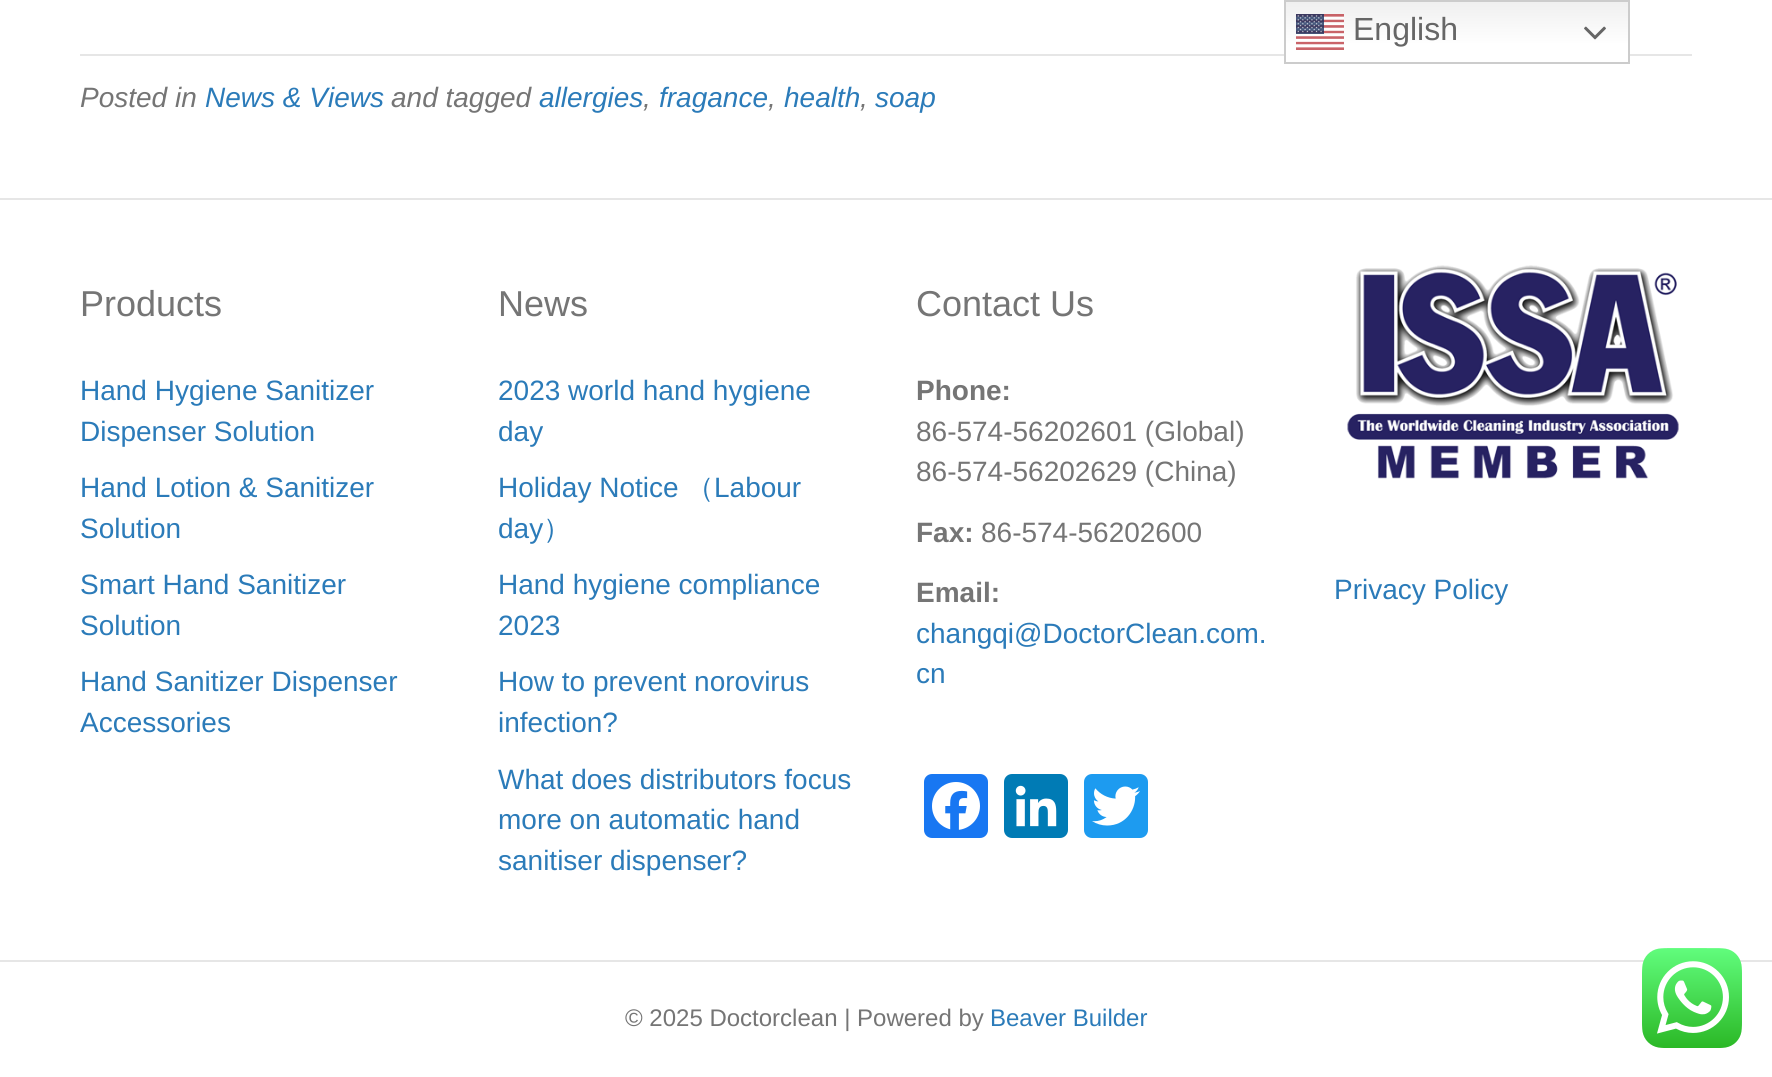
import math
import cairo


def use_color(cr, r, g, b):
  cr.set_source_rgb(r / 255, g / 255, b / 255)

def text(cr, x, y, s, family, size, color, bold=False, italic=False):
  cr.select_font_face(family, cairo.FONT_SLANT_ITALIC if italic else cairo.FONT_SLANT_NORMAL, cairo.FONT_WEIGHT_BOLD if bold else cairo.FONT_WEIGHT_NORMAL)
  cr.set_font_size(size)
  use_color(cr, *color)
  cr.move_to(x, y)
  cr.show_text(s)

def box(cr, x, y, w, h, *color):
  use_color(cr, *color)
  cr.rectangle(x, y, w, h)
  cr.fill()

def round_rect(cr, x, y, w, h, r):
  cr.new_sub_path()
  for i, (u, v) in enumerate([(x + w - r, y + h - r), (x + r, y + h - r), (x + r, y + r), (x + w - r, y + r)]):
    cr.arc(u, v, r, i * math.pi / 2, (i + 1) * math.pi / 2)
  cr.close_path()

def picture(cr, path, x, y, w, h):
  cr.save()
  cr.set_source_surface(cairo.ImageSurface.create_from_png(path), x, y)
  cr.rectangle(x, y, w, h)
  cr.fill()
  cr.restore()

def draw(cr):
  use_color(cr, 255, 255, 255)
  cr.paint()
  box(cr, 80, 54, 1612, 2, 230, 230, 230)
  gradient = cairo.LinearGradient(1457, 0, 1457, 64)
  gradient.add_color_stop_rgba(0, 0.937, 0.937, 0.937, 1)
  gradient.add_color_stop_rgba(0.7, 1, 1, 1, 1)
  cr.set_source(gradient)
  cr.rectangle(1286, 2, 342, 54)
  cr.fill()
  cr.rectangle(1285, 1, 344, 62)
  use_color(cr, 204, 204, 204)
  cr.stroke()
  picture(cr, "img_01.png", 1296, 14, 48, 36)
  picture(cr, "img_02.png", 1584, 26, 22, 14)
  box(cr, 0, 198, 1772, 2, 230, 230, 230)
  use_color(cr, 24, 119, 242)
  round_rect(cr, 924, 774, 64, 64, 8)
  cr.fill()
  picture(cr, "img_03.png", 932, 782, 48, 48)
  use_color(cr, 0, 123, 181)
  round_rect(cr, 1004, 774, 64, 64, 8)
  cr.fill()
  picture(cr, "img_04.png", 1015, 785, 42, 42)
  use_color(cr, 29, 155, 240)
  round_rect(cr, 1084, 774, 64, 64, 8)
  cr.fill()
  picture(cr, "img_05.png", 1092, 786, 48, 40)
  picture(cr, "img_06.png", 1347, 265, 332, 214)
  box(cr, 0, 960, 1772, 2, 230, 230, 230)
  picture(cr, "img_07.png", 1642, 948, 100, 100)
  text(cr, 1353, 40, "English", "Liberation Sans", 32, (102, 102, 102))
  text(cr, 80, 107, "Posted in", "Liberation Sans", 28, (117, 117, 117), italic=True)
  text(cr, 205, 107, "News & Views", "Liberation Sans", 28, (43, 123, 185), italic=True)
  text(cr, 391, 107, "and tagged", "Liberation Sans", 28, (117, 117, 117), italic=True)
  text(cr, 539, 107, "allergies", "Liberation Sans", 28, (43, 123, 185), italic=True)
  text(cr, 643, 107, ",", "Liberation Sans", 28, (117, 117, 117), italic=True)
  text(cr, 659, 107, "fragance", "Liberation Sans", 28, (43, 123, 185), italic=True)
  text(cr, 768, 107, ",", "Liberation Sans", 28, (117, 117, 117), italic=True)
  text(cr, 784, 107, "health", "Liberation Sans", 28, (43, 123, 185), italic=True)
  text(cr, 860, 107, ",", "Liberation Sans", 28, (117, 117, 117), italic=True)
  text(cr, 875, 107, "soap", "Liberation Sans", 28, (43, 123, 185), italic=True)
  text(cr, 80, 316, "Products", "Liberation Sans", 36, (117, 117, 117))
  text(cr, 80, 400, "Hand Hygiene Sanitizer", "Liberation Sans", 28, (43, 123, 185))
  text(cr, 80, 441, "Dispenser Solution", "Liberation Sans", 28, (43, 123, 185))
  text(cr, 80, 497, "Hand Lotion & Sanitizer", "Liberation Sans", 28, (43, 123, 185))
  text(cr, 80, 538, "Solution", "Liberation Sans", 28, (43, 123, 185))
  text(cr, 80, 594, "Smart Hand Sanitizer", "Liberation Sans", 28, (43, 123, 185))
  text(cr, 80, 635, "Solution", "Liberation Sans", 28, (43, 123, 185))
  text(cr, 80, 691, "Hand Sanitizer Dispenser", "Liberation Sans", 28, (43, 123, 185))
  text(cr, 80, 732, "Accessories", "Liberation Sans", 28, (43, 123, 185))
  text(cr, 498, 316, "News", "Liberation Sans", 36, (117, 117, 117))
  text(cr, 498, 400, "2023 world hand hygiene", "Liberation Sans", 28, (43, 123, 185))
  text(cr, 498, 441, "day", "Liberation Sans", 28, (43, 123, 185))
  text(cr, 498, 497, "Holiday Notice", "Liberation Sans", 28, (43, 123, 185))
  text(cr, 686, 497, "（", "WenQuanYi Zen Hei Medium", 28, (43, 123, 185))
  text(cr, 714, 497, "Labour", "Liberation Sans", 28, (43, 123, 185))
  text(cr, 498, 538, "day", "Liberation Sans", 28, (43, 123, 185))
  text(cr, 543, 538, "）", "WenQuanYi Zen Hei Medium", 28, (43, 123, 185))
  text(cr, 498, 594, "Hand hygiene compliance", "Liberation Sans", 28, (43, 123, 185))
  text(cr, 498, 635, "2023", "Liberation Sans", 28, (43, 123, 185))
  text(cr, 498, 691, "How to prevent norovirus", "Liberation Sans", 28, (43, 123, 185))
  text(cr, 498, 732, "infection?", "Liberation Sans", 28, (43, 123, 185))
  text(cr, 498, 789, "What does distributors focus", "Liberation Sans", 28, (43, 123, 185))
  text(cr, 498, 829, "more on automatic hand", "Liberation Sans", 28, (43, 123, 185))
  text(cr, 498, 870, "sanitiser dispenser?", "Liberation Sans", 28, (43, 123, 185))
  text(cr, 916, 316, "Contact Us", "Liberation Sans", 36, (117, 117, 117))
  text(cr, 916, 400, "Phone:", "Liberation Sans", 28, (117, 117, 117), bold=True)
  text(cr, 916, 441, "86-574-56202601 (Global)", "Liberation Sans", 28, (117, 117, 117))
  text(cr, 916, 481, "86-574-56202629 (China)", "Liberation Sans", 28, (117, 117, 117))
  text(cr, 916, 542, "Fax:", "Liberation Sans", 28, (117, 117, 117), bold=True)
  text(cr, 981, 542, "86-574-56202600", "Liberation Sans", 28, (117, 117, 117))
  text(cr, 916, 602, "Email:", "Liberation Sans", 28, (117, 117, 117), bold=True)
  text(cr, 916, 643, "changqi@DoctorClean.com.", "Liberation Sans", 28, (43, 123, 185))
  text(cr, 916, 683, "cn", "Liberation Sans", 28, (43, 123, 185))
  text(cr, 1334, 599, "Privacy Policy", "Liberation Sans", 28, (43, 123, 185))
  text(cr, 625, 1026, "© 2025 Doctorclean | Powered by", "Liberation Sans", 24, (117, 117, 117))
  text(cr, 990, 1026, "Beaver Builder", "Liberation Sans", 24, (43, 123, 185))


surface = cairo.ImageSurface(cairo.FORMAT_RGB24, 1772, 1077)
cr = cairo.Context(surface)
options = cairo.FontOptions()
options.set_hint_metrics(cairo.HINT_METRICS_OFF)
options.set_hint_style(cairo.HINT_STYLE_NONE)
cr.set_font_options(options)
cr.set_miter_limit(4)
draw(cr)
surface.write_to_png("out.png")
